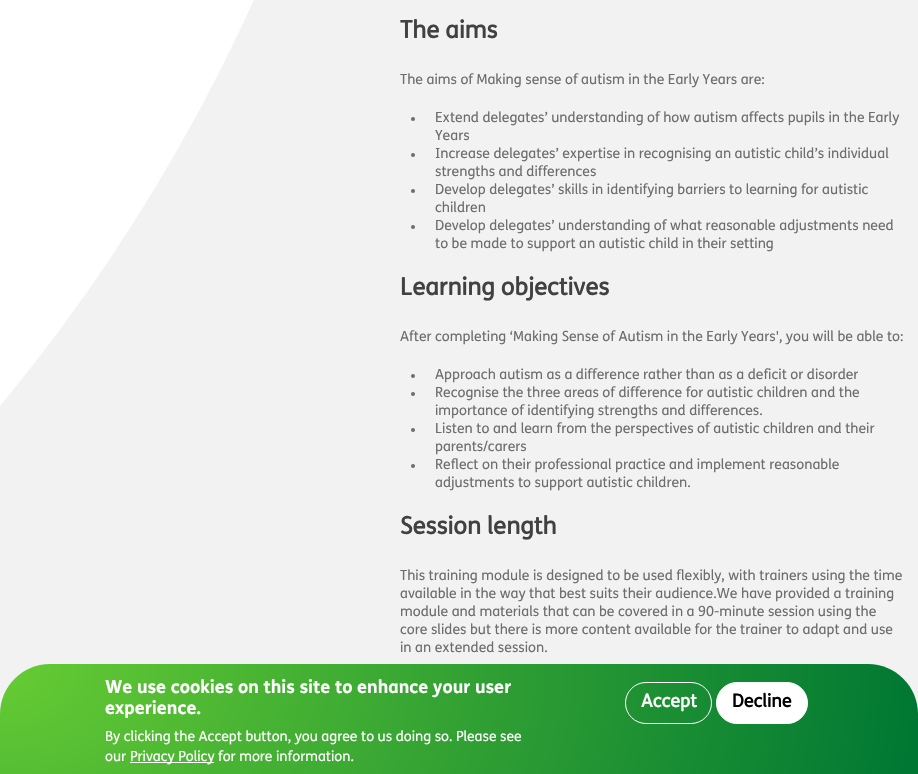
void draw(SkCanvas* canvas) {
    SkPaint paint;
    paint.setAntiAlias(true);
    auto face = [&](const char* family, int weight, float size, bool italic = false) {
        SkFontStyle style(weight, SkFontStyle::kNormal_Width,
            italic ? SkFontStyle::kItalic_Slant : SkFontStyle::kUpright_Slant);
        SkFont result(fontMgr->matchFamilyStyle(family, style), size);
        result.setSubpixel(true);
        return result;
    };
    auto write = [&](const char* s, float x, float y, const SkFont& font, SkColor color) {
        SkPaint ink(SkColor4f::FromColor(color));
        ink.setAntiAlias(true);
        canvas->drawString(s, x, y, font, ink);
    };
    auto block = [&](float x, float y, float w, float h, SkColor color) {
        SkPaint ink(SkColor4f::FromColor(color));
        ink.setAntiAlias(true);
        canvas->drawRect(SkRect::MakeXYWH(x, y, w, h), ink);
    };
    canvas->clear(SkColorSetRGB(242, 242, 242));
    paint.setColor(SK_ColorWHITE);
    canvas->drawOval(SkRect::MakeXYWH(-3187, -2533, 3600, 3590), paint);
    auto kFont1 = face("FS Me", 700, 24);
    write("The aims", 400, 38, kFont1, SkColorSetRGB(65, 65, 65));
    auto kFont2 = face("FS Me", 400, 14);
    write("The aims of Making sense of autism in the Early Years are:", 400, 84, kFont2, SkColorSetRGB(109, 109, 109));
    paint.setColor(SkColorSetRGB(109, 109, 109));
    canvas->drawCircle(413, 119, 2, paint);
    write("Extend delegates’ understanding of how autism affects pupils in the Early", 435, 122, kFont2, SkColorSetRGB(109, 109, 109));
    write("Years", 435, 140, kFont2, SkColorSetRGB(109, 109, 109));
    canvas->drawCircle(413, 155, 2, paint);
    write("Increase delegates’ expertise in recognising an autistic child’s individual", 435, 158, kFont2, SkColorSetRGB(109, 109, 109));
    write("strengths and differences", 435, 176, kFont2, SkColorSetRGB(109, 109, 109));
    canvas->drawCircle(413, 191, 2, paint);
    write("Develop delegates’ skills in identifying barriers to learning for autistic", 435, 194, kFont2, SkColorSetRGB(109, 109, 109));
    write("children", 435, 212, kFont2, SkColorSetRGB(109, 109, 109));
    canvas->drawCircle(413, 227, 2, paint);
    write("Develop delegates’ understanding of what reasonable adjustments need", 435, 230, kFont2, SkColorSetRGB(109, 109, 109));
    write("to be made to support an autistic child in their setting", 435, 248, kFont2, SkColorSetRGB(109, 109, 109));
    write("Learning objectives", 400, 295, kFont1, SkColorSetRGB(65, 65, 65));
    write("After completing ‘Making Sense of Autism in the Early Years', you will be able to:", 400, 341, kFont2, SkColorSetRGB(109, 109, 109));
    canvas->drawCircle(413, 376, 2, paint);
    write("Approach autism as a difference rather than as a deficit or disorder", 435, 379, kFont2, SkColorSetRGB(109, 109, 109));
    canvas->drawCircle(413, 394, 2, paint);
    write("Recognise the three areas of difference for autistic children and the", 435, 397, kFont2, SkColorSetRGB(109, 109, 109));
    write("importance of identifying strengths and differences.", 435, 415, kFont2, SkColorSetRGB(109, 109, 109));
    canvas->drawCircle(413, 430, 2, paint);
    write("Listen to and learn from the perspectives of autistic children and their", 435, 433, kFont2, SkColorSetRGB(109, 109, 109));
    write("parents/carers", 435, 451, kFont2, SkColorSetRGB(109, 109, 109));
    canvas->drawCircle(413, 466, 2, paint);
    write("Reflect on their professional practice and implement reasonable", 435, 469, kFont2, SkColorSetRGB(109, 109, 109));
    write("adjustments to support autistic children.", 435, 487, kFont2, SkColorSetRGB(109, 109, 109));
    write("Session length", 400, 534, kFont1, SkColorSetRGB(65, 65, 65));
    write("This training module is designed to be used flexibly, with trainers using the time", 400, 580, kFont2, SkColorSetRGB(109, 109, 109));
    write("available in the way that best suits their audience.We have provided a training", 400, 598, kFont2, SkColorSetRGB(109, 109, 109));
    write("module and materials that can be covered in a 90-minute session using the", 400, 616, kFont2, SkColorSetRGB(109, 109, 109));
    write("core slides but there is more content available for the trainer to adapt and use", 400, 634, kFont2, SkColorSetRGB(109, 109, 109));
    write("in an extended session.", 400, 652, kFont2, SkColorSetRGB(109, 109, 109));
    {
        const SkColor colors[] = {SkColorSetRGB(102, 204, 51), SkColorSetRGB(0, 120, 51)};
        const float stops[] = {0, 1};
        SkMatrix m = SkMatrix::Translate(0, 673).preScale(918, 599);
        paint.setShader(SkGradientShader::MakeRadial({0, 0}, 1, colors, stops, 2, SkTileMode::kClamp, 0, &m));
        paint.setAlpha(255);
    }
    canvas->drawPath(SkPathBuilder().moveTo(50, 664).lineTo(868, 664).cubicTo(895.5f, 664, 918, 686.5f, 918, 714).lineTo(918, 774).lineTo(0, 774).lineTo(0, 714).cubicTo(0, 686.5f, 22.5f, 664, 50, 664).close().detach(), paint);
    auto kFont3 = face("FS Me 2", 700, 18);
    write("We use cookies on this site to enhance your user", 105, 693, kFont3, SK_ColorWHITE);
    write("experience.", 105, 714, kFont3, SK_ColorWHITE);
    write("By clicking the Accept button, you agree to us doing so. Please see", 105, 741, kFont2, SK_ColorWHITE);
    write("our", 105, 761, kFont2, SK_ColorWHITE);
    block(130, 762, 84, 1, SK_ColorWHITE);
    write("Privacy Policy", 130, 761, kFont2, SK_ColorWHITE);
    write("for more information.", 218, 761, kFont2, SK_ColorWHITE);
    paint.setStyle(SkPaint::kStroke_Style);
    paint.setStrokeWidth(1);
    paint.setShader(nullptr);
    paint.setColor(SK_ColorWHITE);
    canvas->drawRoundRect(SkRect::MakeXYWH(625.5f, 682.5f, 86, 41), 20.5f, 20.5f, paint);
    auto kFont4 = face("FS Me", 700, 18);
    write("Accept", 641, 707, kFont4, SK_ColorWHITE);
    paint.setStyle(SkPaint::kFill_Style);
    canvas->drawRoundRect(SkRect::MakeXYWH(716.5f, 682.5f, 91, 41), 20.5f, 20.5f, paint);
    paint.setStyle(SkPaint::kStroke_Style);
    canvas->drawRoundRect(SkRect::MakeXYWH(716.5f, 682.5f, 91, 41), 20.5f, 20.5f, paint);
    write("Decline", 732, 707, kFont4, SK_ColorBLACK);
}
